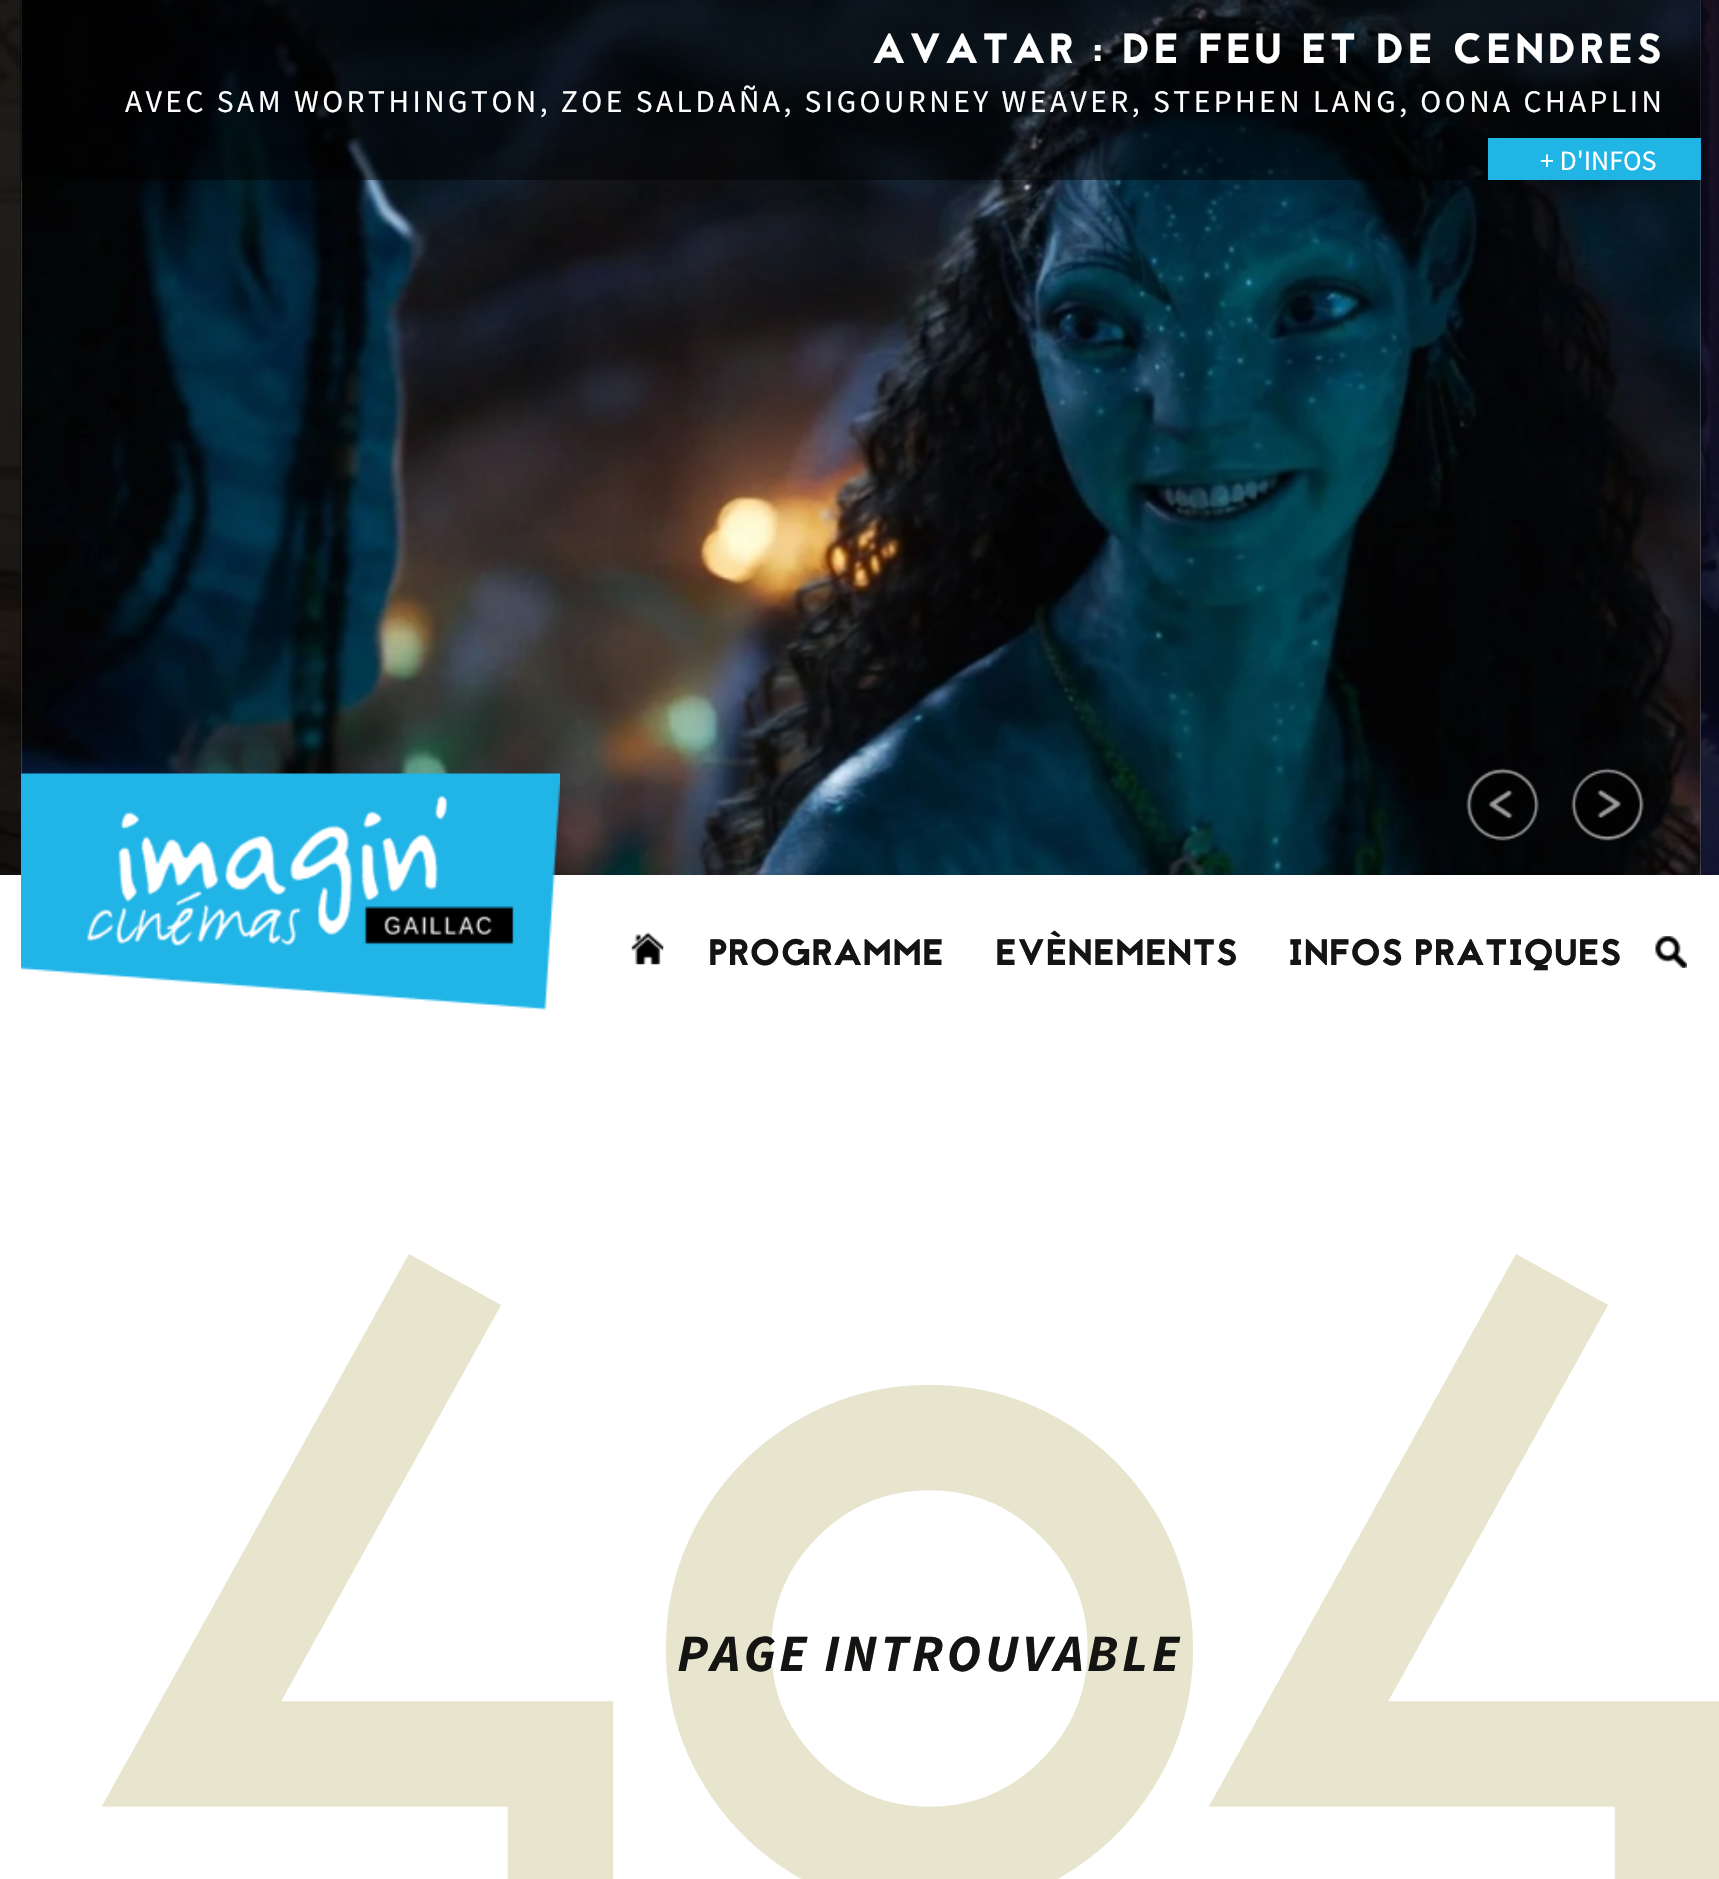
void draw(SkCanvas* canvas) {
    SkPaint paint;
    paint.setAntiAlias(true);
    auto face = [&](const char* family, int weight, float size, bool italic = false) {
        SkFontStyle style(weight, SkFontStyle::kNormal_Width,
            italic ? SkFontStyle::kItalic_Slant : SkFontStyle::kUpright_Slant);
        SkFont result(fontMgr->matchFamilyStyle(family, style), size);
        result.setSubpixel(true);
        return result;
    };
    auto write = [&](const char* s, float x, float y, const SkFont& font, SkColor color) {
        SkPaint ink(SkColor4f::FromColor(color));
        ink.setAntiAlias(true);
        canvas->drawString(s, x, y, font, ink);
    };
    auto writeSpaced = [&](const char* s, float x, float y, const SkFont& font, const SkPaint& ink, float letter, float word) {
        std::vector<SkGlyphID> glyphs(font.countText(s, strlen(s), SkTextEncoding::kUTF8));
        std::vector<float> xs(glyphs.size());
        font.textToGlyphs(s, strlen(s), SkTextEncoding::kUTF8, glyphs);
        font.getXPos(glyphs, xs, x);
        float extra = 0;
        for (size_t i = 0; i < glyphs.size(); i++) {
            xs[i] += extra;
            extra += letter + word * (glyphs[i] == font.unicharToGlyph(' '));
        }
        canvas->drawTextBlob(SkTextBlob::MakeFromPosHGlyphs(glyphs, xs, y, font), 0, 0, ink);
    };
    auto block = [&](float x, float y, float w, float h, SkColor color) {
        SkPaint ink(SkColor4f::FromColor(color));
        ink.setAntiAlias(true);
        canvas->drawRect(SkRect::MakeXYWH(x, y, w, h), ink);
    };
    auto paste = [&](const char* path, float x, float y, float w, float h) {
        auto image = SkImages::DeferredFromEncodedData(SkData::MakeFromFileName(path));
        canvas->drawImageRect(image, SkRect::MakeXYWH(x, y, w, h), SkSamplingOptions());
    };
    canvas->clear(SK_ColorWHITE);
    block(0, 0, 21, 875, SK_ColorBLACK);
    paste("pic1.png", 0, 0, 21, 875);
    paste("pic2.png", 20, 0, 1681, 875);
    block(21, 0, 1680, 180, SkColorSetARGB(128, 0, 0, 0));
    auto kFont1 = face("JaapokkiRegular", 400, 42);
    paint.setColor(SK_ColorWHITE);
    writeSpaced("AVATAR : DE FEU ET DE CENDRES", 872, 63, kFont1, paint, 3.5f, 0);
    auto kFont2 = face("Source Sans Pro", 400, 31.5f);
    writeSpaced("AVEC SAM WORTHINGTON, ZOE SALDAÑA, SIGOURNEY WEAVER, STEPHEN LANG, OONA CHAPLIN", 125, 112, kFont2, paint, 3.5f, 0);
    block(1488, 138, 213, 42, SkColorSetRGB(33, 181, 230));
    auto kFont3 = face("Source Sans Pro", 400, 28);
    write("+ D'INFOS", 1540, 170, kFont3, SK_ColorWHITE);
    block(1701, 0, 18, 875, SK_ColorBLACK);
    paste("pic3.png", 1700, 0, 19, 875);
    paste("pic4.png", 1466, 768, 73, 73);
    paste("pic5.png", 1571, 768, 73, 73);
    paste("pic6.png", 21, 773, 539, 237);
    paste("pic7.png", 631, 932, 33, 33);
    auto kFont4 = face("JaapokkiRegular", 400, 36.75f);
    write("PROGRAMME", 708, 965, kFont4, SkColorSetRGB(20, 20, 18));
    write("EVÈNEMENTS", 995, 965, kFont4, SkColorSetRGB(20, 20, 18));
    write("INFOS PRATIQUES", 1288, 965, kFont4, SkColorSetRGB(20, 20, 18));
    paste("pic8.png", 1655, 936, 32, 32);
    paste("pic9.png", 101, 1254, 1618, 625);
    auto kFont5 = face("Source Sans Pro", 700, 52.5f, true);
    paint.setColor(SkColorSetRGB(20, 20, 18));
    writeSpaced("PAGE INTROUVABLE", 677, 1671, kFont5, paint, 3.5f, 0);
}
